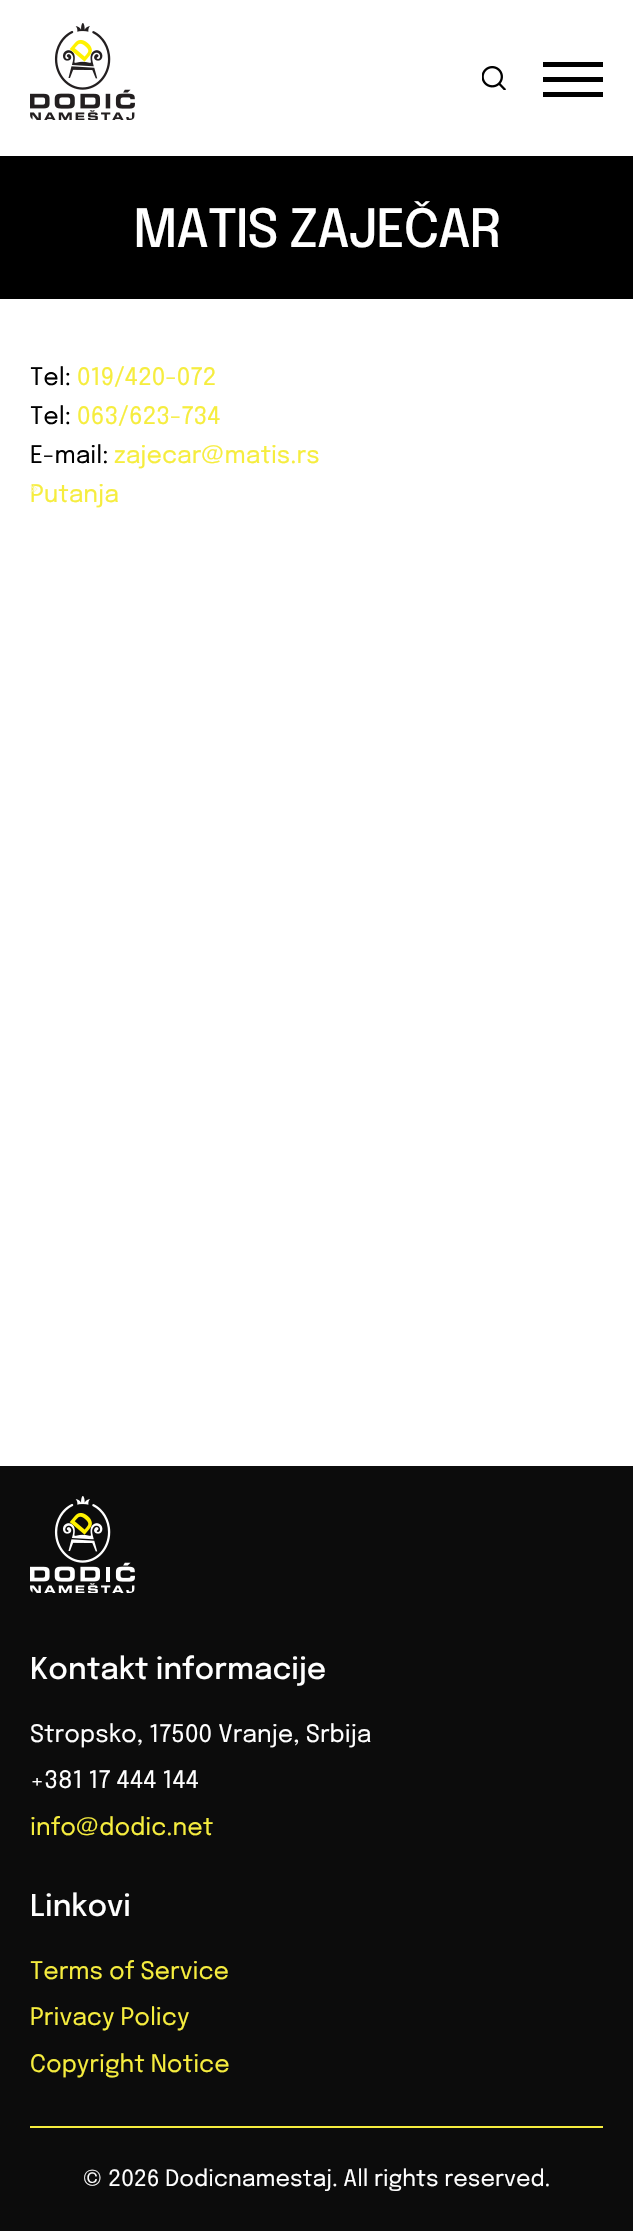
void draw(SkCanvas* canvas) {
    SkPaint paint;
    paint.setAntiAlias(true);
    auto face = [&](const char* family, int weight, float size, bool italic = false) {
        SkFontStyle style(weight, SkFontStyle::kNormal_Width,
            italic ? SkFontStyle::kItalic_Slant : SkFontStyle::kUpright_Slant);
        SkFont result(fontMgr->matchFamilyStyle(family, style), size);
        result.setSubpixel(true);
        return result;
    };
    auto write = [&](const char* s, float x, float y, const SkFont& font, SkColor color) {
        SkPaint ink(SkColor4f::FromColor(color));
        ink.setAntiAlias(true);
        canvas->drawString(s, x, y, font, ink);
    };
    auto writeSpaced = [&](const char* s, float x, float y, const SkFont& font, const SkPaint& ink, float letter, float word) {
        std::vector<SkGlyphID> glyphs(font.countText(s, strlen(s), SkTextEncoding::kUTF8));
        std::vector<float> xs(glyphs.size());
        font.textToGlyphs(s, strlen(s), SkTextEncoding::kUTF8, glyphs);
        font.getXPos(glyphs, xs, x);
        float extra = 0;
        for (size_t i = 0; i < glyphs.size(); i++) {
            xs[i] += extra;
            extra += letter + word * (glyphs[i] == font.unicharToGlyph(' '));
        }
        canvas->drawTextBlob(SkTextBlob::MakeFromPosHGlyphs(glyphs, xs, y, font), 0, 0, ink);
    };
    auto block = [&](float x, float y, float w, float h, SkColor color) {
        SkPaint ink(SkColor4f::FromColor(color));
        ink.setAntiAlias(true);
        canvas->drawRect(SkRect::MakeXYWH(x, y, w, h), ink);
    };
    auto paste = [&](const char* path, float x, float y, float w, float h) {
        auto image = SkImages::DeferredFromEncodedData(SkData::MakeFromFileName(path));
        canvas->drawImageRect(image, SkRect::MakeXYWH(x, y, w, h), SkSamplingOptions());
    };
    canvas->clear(SK_ColorWHITE);
    block(0, 156, 633, 143, SK_ColorBLACK);
    auto kFont1 = face("Epilogue", 500, 52.5f);
    paint.setColor(SK_ColorWHITE);
    writeSpaced("MATIS ZAJEČAR", 133, 247, kFont1, paint, -1.5f, 0);
    auto kFont2 = face("Epilogue", 400, 24);
    write("Tel:", 30, 385, kFont2, SK_ColorBLACK);
    write("019/420-072", 77, 385, kFont2, SkColorSetRGB(246, 237, 62));
    write("Tel:", 30, 424, kFont2, SK_ColorBLACK);
    write("063/623-734", 77, 424, kFont2, SkColorSetRGB(246, 237, 62));
    write("E-mail:", 30, 463, kFont2, SK_ColorBLACK);
    write("zajecar@matis.rs", 114, 463, kFont2, SkColorSetRGB(246, 237, 62));
    write("Putanja", 30, 502, kFont2, SkColorSetRGB(246, 237, 62));
    paste("pic1.png", 30, 23, 105, 97);
    paste("pic2.png", 482, 66, 24, 24);
    block(543, 62, 60, 5, SK_ColorBLACK);
    block(543, 77, 60, 5, SK_ColorBLACK);
    block(543, 92, 60, 5, SK_ColorBLACK);
    auto kFont3 = face("Epilogue", 400, 21);
    write("»", 30, 495, kFont3, SkColorSetRGB(252, 249, 191));
    block(0, 1466, 633, 765, SkColorSetRGB(12, 12, 12));
    paste("pic3.png", 30, 1496, 105, 97);
    auto kFont4 = face("Epilogue", 500, 30);
    write("Kontakt informacije", 30, 1679, kFont4, SK_ColorWHITE);
    write("Stropsko, 17500 Vranje, Srbija", 30, 1742, kFont2, SK_ColorWHITE);
    write("+381 17 444 144", 30, 1788, kFont2, SK_ColorWHITE);
    write("info@dodic.net", 30, 1835, kFont2, SkColorSetRGB(246, 237, 62));
    write("Linkovi", 30, 1916, kFont4, SK_ColorWHITE);
    write("Terms of Service", 30, 1979, kFont2, SkColorSetRGB(246, 237, 62));
    write("Privacy Policy", 30, 2025, kFont2, SkColorSetRGB(246, 237, 62));
    write("Copyright Notice", 30, 2072, kFont2, SkColorSetRGB(246, 237, 62));
    block(30, 2126, 573, 2, SkColorSetRGB(246, 237, 62));
    auto kFont5 = face("Epilogue", 400, 22.5f);
    write("© 2026 Dodicnamestaj. All rights reserved.", 83, 2186, kFont5, SK_ColorWHITE);
}
